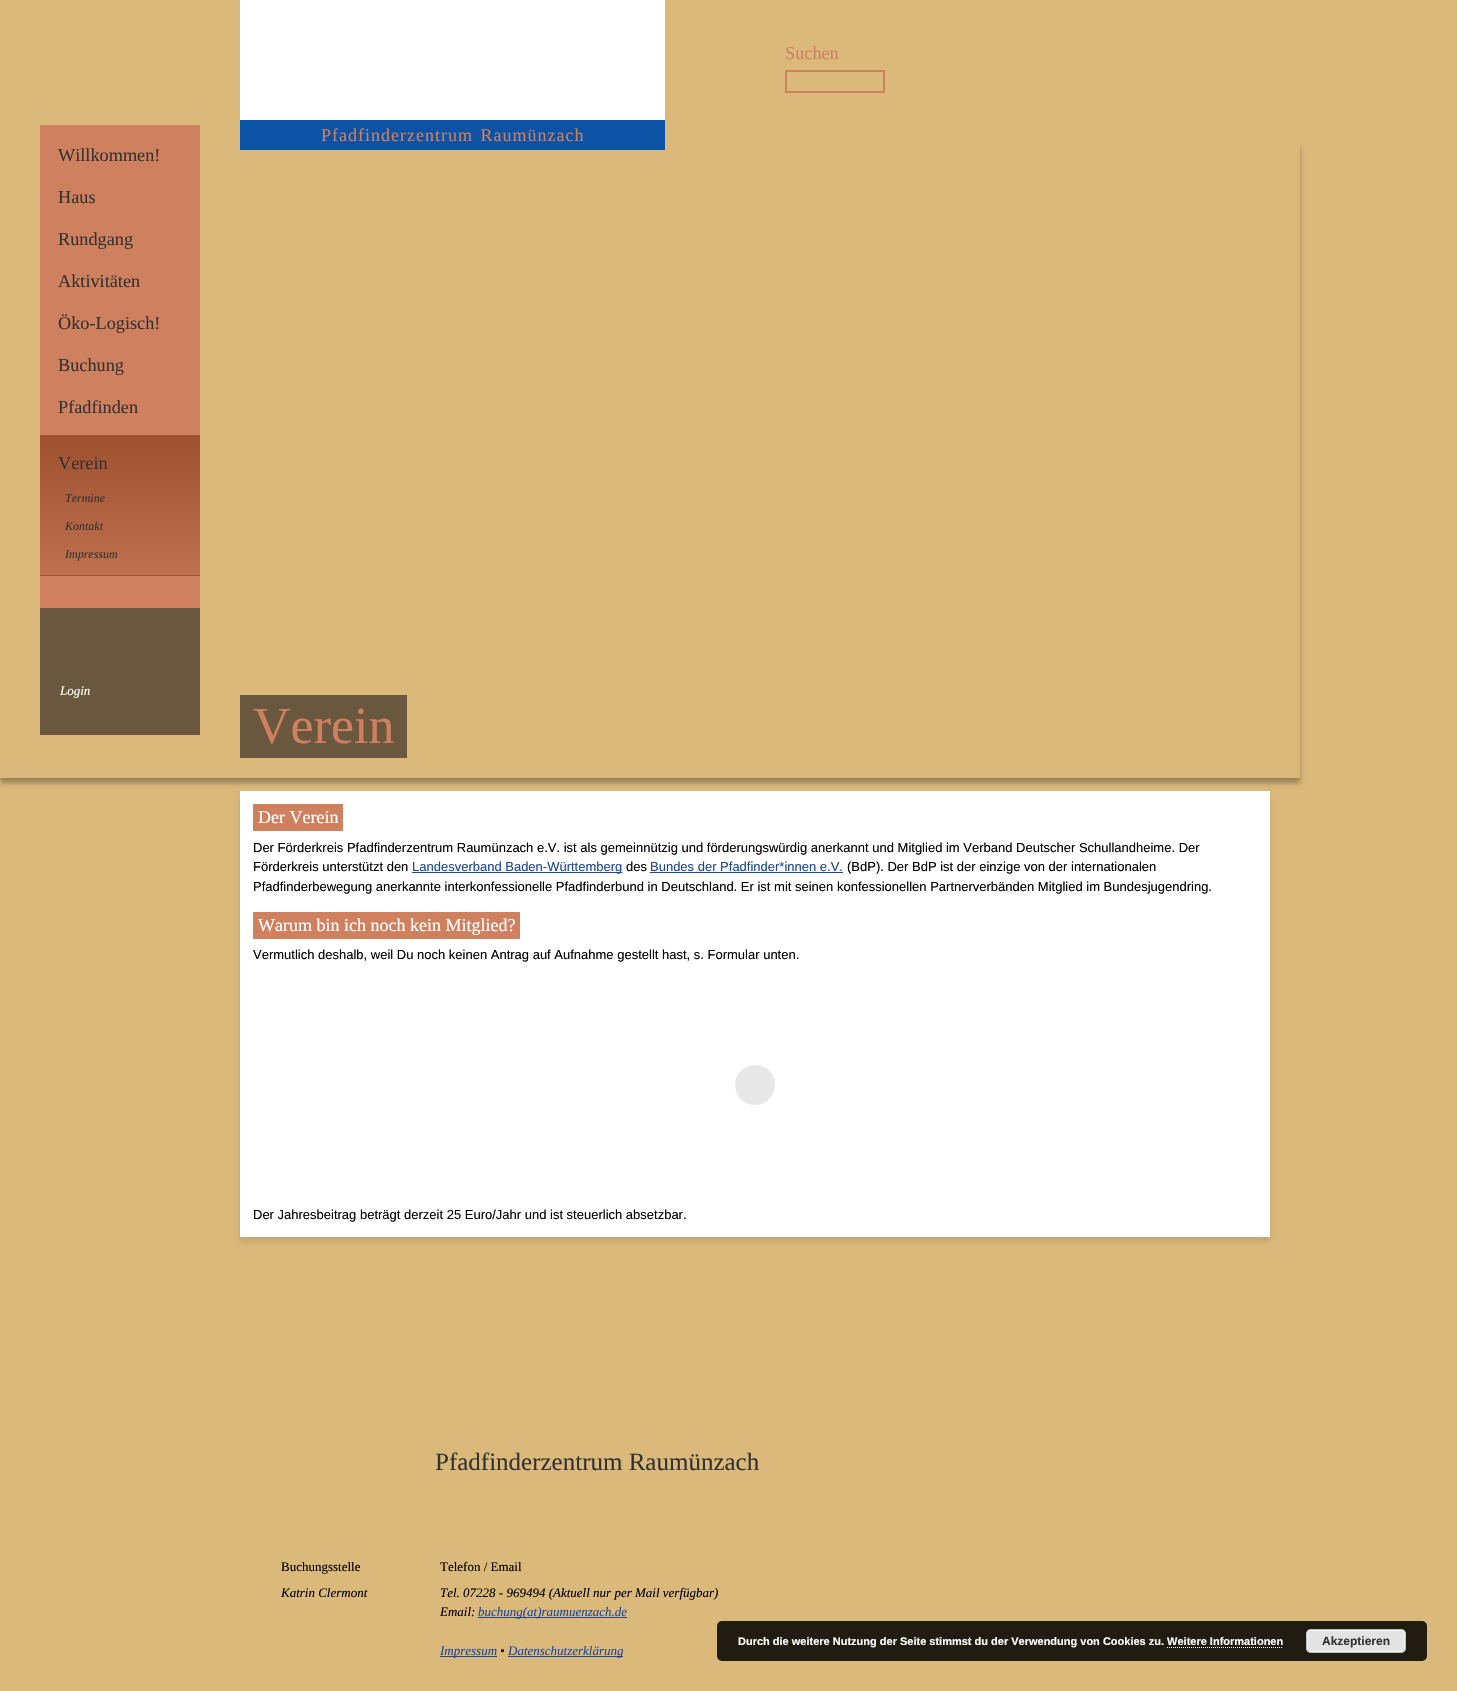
void draw(SkCanvas* canvas) {
    SkPaint paint;
    paint.setAntiAlias(true);
    auto face = [&](const char* family, int weight, float size, bool italic = false) {
        SkFontStyle style(weight, SkFontStyle::kNormal_Width,
            italic ? SkFontStyle::kItalic_Slant : SkFontStyle::kUpright_Slant);
        SkFont result(fontMgr->matchFamilyStyle(family, style), size);
        result.setSubpixel(true);
        return result;
    };
    auto write = [&](const char* s, float x, float y, const SkFont& font, SkColor color) {
        SkPaint ink(SkColor4f::FromColor(color));
        ink.setAntiAlias(true);
        canvas->drawString(s, x, y, font, ink);
    };
    auto writeSpaced = [&](const char* s, float x, float y, const SkFont& font, const SkPaint& ink, float letter, float word) {
        std::vector<SkGlyphID> glyphs(font.countText(s, strlen(s), SkTextEncoding::kUTF8));
        std::vector<float> xs(glyphs.size());
        font.textToGlyphs(s, strlen(s), SkTextEncoding::kUTF8, glyphs);
        font.getXPos(glyphs, xs, x);
        float extra = 0;
        for (size_t i = 0; i < glyphs.size(); i++) {
            xs[i] += extra;
            extra += letter + word * (glyphs[i] == font.unicharToGlyph(' '));
        }
        canvas->drawTextBlob(SkTextBlob::MakeFromPosHGlyphs(glyphs, xs, y, font), 0, 0, ink);
    };
    auto block = [&](float x, float y, float w, float h, SkColor color) {
        SkPaint ink(SkColor4f::FromColor(color));
        ink.setAntiAlias(true);
        canvas->drawRect(SkRect::MakeXYWH(x, y, w, h), ink);
    };
    auto card = [&](float x, float y, float w, float h, float radius, SkColor color) {
        SkPaint ink(SkColor4f::FromColor(color));
        ink.setAntiAlias(true);
        canvas->drawRoundRect(SkRect::MakeXYWH(x, y, w, h), radius, radius, ink);
    };
    canvas->clear(SkColorSetRGB(219, 185, 123));
    auto kFont1 = face("Liberation Serif", 400, 18.25f);
    write("Suchen", 785, 59, kFont1, SkColorSetRGB(207, 128, 95));
    paint.setStyle(SkPaint::kStroke_Style);
    paint.setStrokeWidth(2);
    paint.setColor(SkColorSetRGB(207, 128, 95));
    canvas->drawRect(SkRect::MakeXYWH(786, 71, 98, 21), paint);
    block(240, 0, 425, 120, SK_ColorWHITE);
    paint.setStyle(SkPaint::kFill_Style);
    paint.setColor(SkColorSetARGB(26, 0, 0, 0));
    paint.setMaskFilter(SkMaskFilter::MakeBlur(kNormal_SkBlurStyle, 2.5f));
    canvas->drawRect(SkRect::MakeXYWH(240, 796, 1030, 446), paint);
    paint.setMaskFilter(nullptr);
    block(240, 791, 1030, 446, SK_ColorWHITE);
    canvas->save();
    canvas->clipPath(SkPathBuilder(SkPathFillType::kEvenOdd).moveTo(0, 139).lineTo(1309, 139).lineTo(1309, 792).lineTo(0, 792).close().moveTo(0, 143).lineTo(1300, 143).lineTo(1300, 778).lineTo(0, 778).close().detach(), true);
    paint.setColor(SkColorSetARGB(77, 0, 0, 0));
    paint.setMaskFilter(SkMaskFilter::MakeBlur(kNormal_SkBlurStyle, 2.5f));
    canvas->drawRect(SkRect::MakeXYWH(0, 148, 1300, 635), paint);
    paint.setMaskFilter(nullptr);
    canvas->restore();
    block(240, 120, 425, 30, SkColorSetRGB(13, 83, 165));
    auto kFont2 = face("Liberation Serif", 400, 18);
    paint.setColor(SkColorSetRGB(207, 128, 95));
    writeSpaced("Pfadfinderzentrum Raumünzach", 321, 141, kFont2, paint, 1, 2);
    block(40, 125, 160, 483, SkColorSetRGB(207, 128, 95));
    write("Willkommen!", 58, 161, kFont1, SkColorSetRGB(51, 51, 51));
    write("Haus", 58, 203, kFont1, SkColorSetRGB(51, 51, 51));
    write("Rundgang", 58, 245, kFont1, SkColorSetRGB(51, 51, 51));
    write("Aktivitäten", 58, 287, kFont1, SkColorSetRGB(51, 51, 51));
    write("Öko-Logisch!", 58, 329, kFont1, SkColorSetRGB(51, 51, 51));
    write("Buchung", 58, 371, kFont1, SkColorSetRGB(51, 51, 51));
    write("Pfadfinden", 58, 413, kFont1, SkColorSetRGB(51, 51, 51));
    {
        const SkColor colors[] = {SkColorSetRGB(159, 80, 47), SkColorSetRGB(191, 112, 79)};
        const float stops[] = {0, 1};
        const SkPoint ends[] = {{120, 436}, {120, 575}};
        paint.setShader(SkGradientShader::MakeLinear(ends, colors, stops, 2, SkTileMode::kClamp));
        paint.setAlpha(255);
    }
    canvas->drawRect(SkRect::MakeXYWH(40, 436, 160, 139), paint);
    block(40, 435, 160, 1, SkColorSetRGB(159, 80, 47));
    block(40, 575, 160, 1, SkColorSetRGB(159, 80, 47));
    write("Verein", 58, 469, kFont1, SkColorSetRGB(51, 51, 51));
    auto kFont3 = face("Liberation Serif", 400, 12, true);
    write("Termine", 65, 502, kFont3, SkColorSetRGB(51, 51, 51));
    write("Kontakt", 65, 530, kFont3, SkColorSetRGB(51, 51, 51));
    write("Impressum", 65, 558, kFont3, SkColorSetRGB(51, 51, 51));
    block(40, 608, 160, 127, SkColorSetRGB(105, 88, 61));
    auto kFont4 = face("Liberation Serif", 400, 13, true);
    write("Login", 60, 695, kFont4, SK_ColorWHITE);
    block(240, 695, 167, 63, SkColorSetRGB(105, 88, 61));
    auto kFont5 = face("Liberation Serif", 400, 52);
    write("Verein", 253, 743, kFont5, SkColorSetRGB(207, 128, 95));
    block(253, 804, 90, 27, SkColorSetRGB(207, 128, 95));
    write("Der Verein", 258, 823, kFont2, SK_ColorWHITE);
    auto kFont6 = face("Liberation Sans", 400, 13);
    write("Der Förderkreis Pfadfinderzentrum Raumünzach e.V. ist als gemeinnützig und förderungswürdig anerkannt und Mitglied im Verband Deutscher Schullandheime. Der", 253, 852, kFont6, SK_ColorBLACK);
    write("Förderkreis unterstützt den", 253, 871, kFont6, SK_ColorBLACK);
    block(412, 872, 210, 1, SkColorSetRGB(29, 72, 153));
    write("Landesverband Baden-Württemberg", 412, 871, kFont6, SkColorSetRGB(29, 72, 153));
    write("des", 626, 871, kFont6, SK_ColorBLACK);
    write("Bundes der Pfadfinder*innen e.V.", 650, 871, kFont6, SkColorSetRGB(29, 72, 153));
    block(650, 872, 193, 1, SkColorSetRGB(29, 72, 153));
    write("(BdP). Der BdP ist der einzige von der internationalen", 847, 871, kFont6, SK_ColorBLACK);
    write("Pfadfinderbewegung anerkannte interkonfessionelle Pfadfinderbund in Deutschland. Er ist mit seinen konfessionellen Partnerverbänden Mitglied im Bundesjugendring.", 253, 891, kFont6, SK_ColorBLACK);
    block(253, 912, 267, 27, SkColorSetRGB(207, 128, 95));
    write("Warum bin ich noch kein Mitglied?", 258, 931, kFont2, SK_ColorWHITE);
    write("Vermutlich deshalb, weil Du noch keinen Antrag auf Aufnahme gestellt hast, s. Formular unten.", 253, 959, kFont6, SK_ColorBLACK);
    paint.setShader(nullptr);
    paint.setColor(SkColorSetRGB(232, 232, 232));
    canvas->drawCircle(755, 1085, 20, paint);
    write("Der Jahresbeitrag beträgt derzeit 25 Euro/Jahr und ist steuerlich absetzbar.", 253, 1219, kFont6, SK_ColorBLACK);
    auto kFont7 = face("Liberation Serif", 400, 25);
    write("Pfadfinderzentrum Raumünzach", 435, 1470, kFont7, SkColorSetRGB(51, 51, 51));
    auto kFont8 = face("Liberation Serif", 400, 13);
    write("Buchungsstelle", 281, 1571, kFont8, SK_ColorBLACK);
    write("Katrin Clermont", 281, 1597, kFont4, SK_ColorBLACK);
    write("Telefon / Email", 440, 1571, kFont8, SK_ColorBLACK);
    write("Tel. 07228 - 969494 (Aktuell nur per Mail verfügbar)", 440, 1597, kFont4, SK_ColorBLACK);
    write("Email:", 440, 1616, kFont4, SK_ColorBLACK);
    block(478, 1617, 149, 1, SkColorSetRGB(29, 72, 153));
    write("buchung(at)raumuenzach.de", 478, 1616, kFont4, SkColorSetRGB(29, 72, 153));
    block(440, 1656, 57, 1, SkColorSetRGB(29, 72, 153));
    write("Impressum", 440, 1655, kFont4, SkColorSetRGB(29, 72, 153));
    write("•", 500, 1655, kFont4, SK_ColorBLACK);
    block(508, 1656, 115, 1, SkColorSetRGB(29, 72, 153));
    write("Datenschutzerklärung", 508, 1655, kFont4, SkColorSetRGB(29, 72, 153));
    card(717, 1621, 710, 40, 5, SkColorSetRGB(33, 28, 18));
    auto kFont9 = face("Liberation Sans", 700, 11);
    write("Durch die weitere Nutzung der Seite stimmst du der Verwendung von Cookies zu. Weitere Informationen", 738, 1645, kFont9, SK_ColorWHITE);
    card(1306, 1629, 100, 24, 5, SkColorSetRGB(227, 227, 227));
    paint.setStyle(SkPaint::kStroke_Style);
    paint.setStrokeWidth(1);
    paint.setColor(SkColorSetRGB(246, 246, 246));
    canvas->drawRoundRect(SkRect::MakeXYWH(1307.5f, 1630.5f, 97, 21), 3.5f, 3.5f, paint);
    paint.setColor(SkColorSetRGB(187, 187, 187));
    canvas->drawRoundRect(SkRect::MakeXYWH(1306.5f, 1629.5f, 99, 23), 4.5f, 4.5f, paint);
    auto kFont10 = face("Liberation Sans", 700, 12);
    write("Akzeptieren", 1322, 1645, kFont10, SkColorSetRGB(51, 51, 51));
    paint.setColor(SK_ColorWHITE);
    paint.setPathEffect(SkDashPathEffect::Make({{1, 1}}, 0));
    canvas->drawPath(SkPathBuilder().moveTo(1167, 1647.5f).lineTo(1283, 1647.5f).detach(), paint);
    paint.setPathEffect(nullptr);
}
